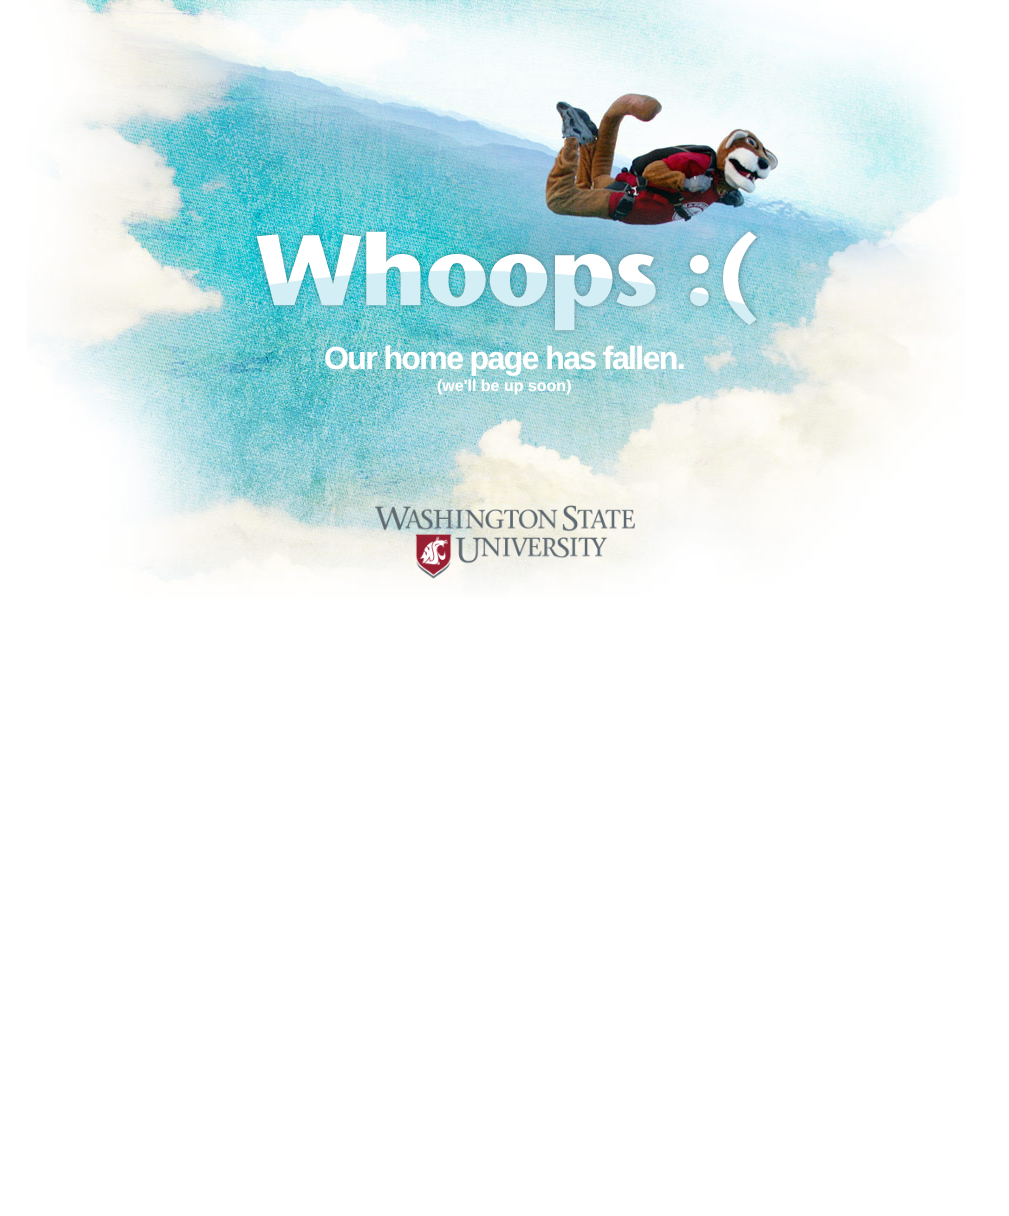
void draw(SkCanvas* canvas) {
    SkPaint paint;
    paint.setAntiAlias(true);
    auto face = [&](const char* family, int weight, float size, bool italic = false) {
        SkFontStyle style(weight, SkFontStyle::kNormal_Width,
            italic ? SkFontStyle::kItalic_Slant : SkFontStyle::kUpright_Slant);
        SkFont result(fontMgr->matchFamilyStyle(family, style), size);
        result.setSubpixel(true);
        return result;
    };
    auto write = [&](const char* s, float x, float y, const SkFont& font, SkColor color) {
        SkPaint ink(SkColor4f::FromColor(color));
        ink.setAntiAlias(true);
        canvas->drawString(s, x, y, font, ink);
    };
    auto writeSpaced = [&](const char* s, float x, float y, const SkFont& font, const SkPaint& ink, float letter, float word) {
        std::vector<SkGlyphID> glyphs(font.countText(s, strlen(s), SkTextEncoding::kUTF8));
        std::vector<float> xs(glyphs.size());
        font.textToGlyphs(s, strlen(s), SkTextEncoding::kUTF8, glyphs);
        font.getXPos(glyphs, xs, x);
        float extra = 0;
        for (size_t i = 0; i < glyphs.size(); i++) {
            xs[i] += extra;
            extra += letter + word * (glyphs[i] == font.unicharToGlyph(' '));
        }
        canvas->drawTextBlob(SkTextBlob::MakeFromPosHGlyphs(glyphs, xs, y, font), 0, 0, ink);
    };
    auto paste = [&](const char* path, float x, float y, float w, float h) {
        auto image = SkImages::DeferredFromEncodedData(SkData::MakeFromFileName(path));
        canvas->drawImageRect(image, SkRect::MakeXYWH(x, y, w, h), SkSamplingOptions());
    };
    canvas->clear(SK_ColorWHITE);
    paste("pic1.png", 26, 0, 939, 597);
    paste("pic2.png", 253, 228, 507, 106);
    auto kFont1 = face("Liberation Sans", 700, 32);
    paint.setColor(SK_ColorWHITE);
    writeSpaced("Our home page has fallen.", 324, 369, kFont1, paint, -1.6f, 0);
    auto kFont2 = face("Liberation Sans", 700, 16);
    write("(we'll be up soon)", 437, 391, kFont2, SK_ColorWHITE);
    paste("pic3.png", 375, 505, 260, 74);
}
